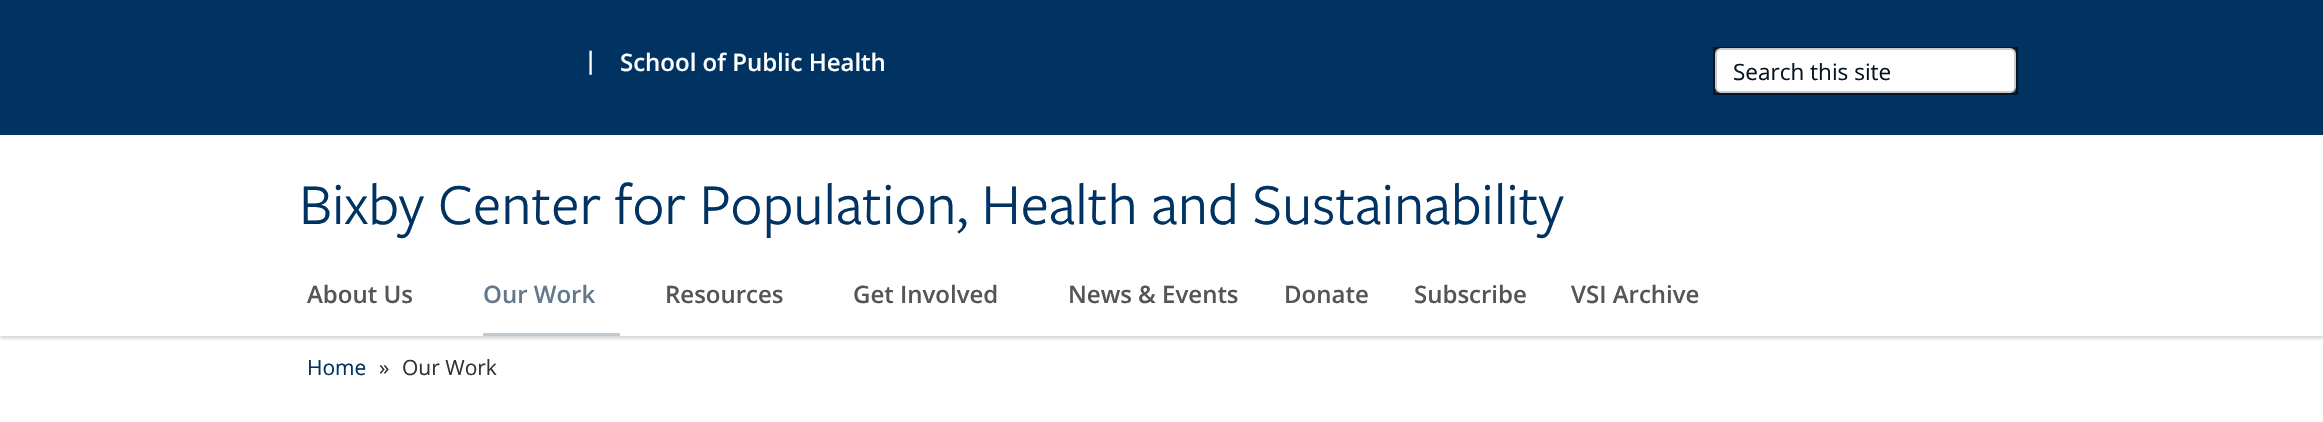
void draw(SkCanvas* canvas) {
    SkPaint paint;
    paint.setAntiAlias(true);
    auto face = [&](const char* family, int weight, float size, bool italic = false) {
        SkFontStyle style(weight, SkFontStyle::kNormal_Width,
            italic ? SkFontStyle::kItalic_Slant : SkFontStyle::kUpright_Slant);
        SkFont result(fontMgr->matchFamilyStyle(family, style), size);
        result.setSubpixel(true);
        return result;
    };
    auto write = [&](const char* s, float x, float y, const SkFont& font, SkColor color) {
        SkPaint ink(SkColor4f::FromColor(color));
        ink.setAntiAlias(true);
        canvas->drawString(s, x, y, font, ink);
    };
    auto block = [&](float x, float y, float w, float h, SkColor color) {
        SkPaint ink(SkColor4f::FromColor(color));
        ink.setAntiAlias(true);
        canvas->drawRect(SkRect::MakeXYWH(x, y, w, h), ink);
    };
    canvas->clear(SK_ColorWHITE);
    canvas->save();
    canvas->clipRect(SkRect::MakeXYWH(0, 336, 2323, 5));
    paint.setColor(SkColorSetARGB(51, 0, 0, 0));
    paint.setMaskFilter(SkMaskFilter::MakeBlur(kNormal_SkBlurStyle, 2));
    canvas->drawRect(SkRect::MakeXYWH(0, 2, 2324, 336), paint);
    paint.setMaskFilter(nullptr);
    canvas->restore();
    block(0, 0, 2323, 135, SkColorSetRGB(0, 50, 98));
    auto kFont1 = face("Open Sans", 600, 24);
    write("|", 584, 69, kFont1, SK_ColorWHITE);
    write("School of Public Health", 620, 71, kFont1, SK_ColorWHITE);
    paint.setStyle(SkPaint::kStroke_Style);
    paint.setStrokeWidth(2);
    paint.setColor(SkColorSetRGB(8, 21, 33));
    canvas->drawRect(SkRect::MakeXYWH(1714, 48, 303, 46), paint);
    paint.setStyle(SkPaint::kFill_Style);
    paint.setColor(SK_ColorWHITE);
    canvas->drawRoundRect(SkRect::MakeXYWH(1716, 49, 299, 43), 5, 5, paint);
    paint.setStyle(SkPaint::kStroke_Style);
    paint.setColor(SkColorSetRGB(204, 204, 204));
    canvas->drawRoundRect(SkRect::MakeXYWH(1716, 49, 299, 43), 5, 5, paint);
    auto kFont2 = face("Open Sans", 400, 22.5f);
    write("Search this site", 1733, 80, kFont2, SkColorSetRGB(8, 21, 33));
    write("About Us", 307, 303, kFont1, SkColorSetRGB(85, 85, 85));
    block(483, 333, 137, 3, SkColorSetRGB(192, 202, 211));
    write("Our Work", 483, 303, kFont1, SkColorSetRGB(100, 120, 139));
    write("Resources", 665, 303, kFont1, SkColorSetRGB(85, 85, 85));
    write("Get Involved", 853, 303, kFont1, SkColorSetRGB(85, 85, 85));
    write("News & Events", 1068, 303, kFont1, SkColorSetRGB(85, 85, 85));
    write("Donate", 1284, 303, kFont1, SkColorSetRGB(85, 85, 85));
    write("Subscribe", 1414, 303, kFont1, SkColorSetRGB(85, 85, 85));
    write("VSI Archive", 1571, 303, kFont1, SkColorSetRGB(85, 85, 85));
    auto kFont3 = face("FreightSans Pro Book", 400, 60);
    write("Bixby Center for Population, Health and Sustainability", 299, 224, kFont3, SkColorSetRGB(0, 50, 98));
    auto kFont4 = face("Open Sans", 400, 21);
    write("Home", 307, 375, kFont4, SkColorSetRGB(0, 50, 98));
    write("»", 379, 375, kFont4, SkColorSetRGB(51, 51, 51));
    write("Our Work", 402, 375, kFont4, SkColorSetRGB(51, 51, 51));
}
